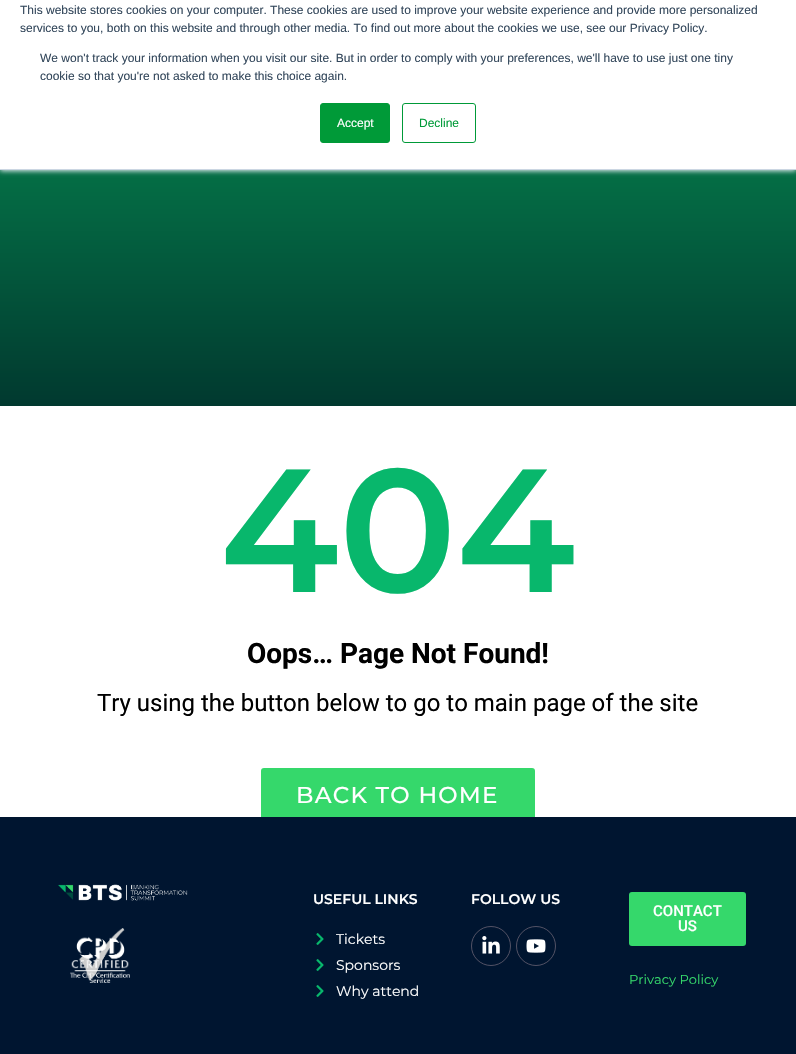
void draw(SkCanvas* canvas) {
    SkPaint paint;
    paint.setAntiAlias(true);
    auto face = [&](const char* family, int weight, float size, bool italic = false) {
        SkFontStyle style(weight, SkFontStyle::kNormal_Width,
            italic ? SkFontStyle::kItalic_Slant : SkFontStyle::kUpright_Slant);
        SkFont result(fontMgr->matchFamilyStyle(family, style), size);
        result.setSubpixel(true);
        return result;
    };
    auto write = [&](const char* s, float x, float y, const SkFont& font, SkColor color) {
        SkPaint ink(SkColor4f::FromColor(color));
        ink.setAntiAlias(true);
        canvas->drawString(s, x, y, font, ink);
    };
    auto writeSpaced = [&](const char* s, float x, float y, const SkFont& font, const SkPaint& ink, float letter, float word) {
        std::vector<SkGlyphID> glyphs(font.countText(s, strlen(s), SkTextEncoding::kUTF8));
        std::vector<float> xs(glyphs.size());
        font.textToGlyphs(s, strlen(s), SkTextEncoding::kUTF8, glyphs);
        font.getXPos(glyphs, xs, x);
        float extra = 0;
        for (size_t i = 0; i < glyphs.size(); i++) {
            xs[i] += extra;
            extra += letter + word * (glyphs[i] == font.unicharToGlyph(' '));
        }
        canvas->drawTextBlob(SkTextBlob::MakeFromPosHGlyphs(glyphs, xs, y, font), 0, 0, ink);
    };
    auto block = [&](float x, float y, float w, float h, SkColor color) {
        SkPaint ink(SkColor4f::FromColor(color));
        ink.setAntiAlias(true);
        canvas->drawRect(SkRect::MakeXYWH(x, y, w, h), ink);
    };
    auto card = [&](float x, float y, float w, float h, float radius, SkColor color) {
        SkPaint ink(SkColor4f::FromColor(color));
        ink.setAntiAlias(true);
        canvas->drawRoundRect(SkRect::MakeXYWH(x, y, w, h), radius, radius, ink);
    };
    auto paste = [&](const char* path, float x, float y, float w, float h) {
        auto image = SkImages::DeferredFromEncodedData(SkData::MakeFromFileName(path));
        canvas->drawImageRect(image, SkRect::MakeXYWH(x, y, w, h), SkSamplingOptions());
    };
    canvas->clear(SK_ColorWHITE);
    {
        const SkColor colors[] = {SkColorSetRGB(6, 136, 80), SkColorSetRGB(1, 57, 47)};
        const float stops[] = {0.18f, 1};
        const SkPoint ends[] = {{398, -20}, {398, 406}};
        paint.setShader(SkGradientShader::MakeLinear(ends, colors, stops, 2, SkTileMode::kClamp));
        paint.setAlpha(255);
    }
    canvas->drawRect(SkRect::MakeXYWH(0, 170, 796, 236), paint);
    paint.setShader(nullptr);
    paint.setColor(SkColorSetRGB(234, 240, 246));
    paint.setMaskFilter(SkMaskFilter::MakeBlur(kNormal_SkBlurStyle, 2.5f));
    canvas->drawRect(SkRect::MakeXYWH(0, -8, 796, 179), paint);
    paint.setMaskFilter(nullptr);
    block(0, 0, 796, 169, SK_ColorWHITE);
    block(0, 169, 796, 1, SkColorSetRGB(203, 214, 226));
    auto kFont1 = face("Liberation Sans", 400, 12);
    write("This website stores cookies on your computer. These cookies are used to improve your website experience and provide more personalized", 20, 14, kFont1, SkColorSetRGB(51, 71, 91));
    write("services to you, both on this website and through other media. To find out more about the cookies we use, see our Privacy Policy.", 20, 32, kFont1, SkColorSetRGB(51, 71, 91));
    write("We won't track your information when you visit our site. But in order to comply with your preferences, we'll have to use just one tiny", 40, 62, kFont1, SkColorSetRGB(51, 71, 91));
    write("cookie so that you're not asked to make this choice again.", 40, 80, kFont1, SkColorSetRGB(51, 71, 91));
    paint.setColor(SkColorSetRGB(0, 154, 56));
    canvas->drawRoundRect(SkRect::MakeXYWH(320.5f, 103.5f, 69, 39), 2.5f, 2.5f, paint);
    paint.setStyle(SkPaint::kStroke_Style);
    paint.setStrokeWidth(1);
    canvas->drawRoundRect(SkRect::MakeXYWH(320.5f, 103.5f, 69, 39), 2.5f, 2.5f, paint);
    write("Accept", 337, 127, kFont1, SK_ColorWHITE);
    canvas->drawRoundRect(SkRect::MakeXYWH(402.5f, 103.5f, 73, 39), 2.5f, 2.5f, paint);
    write("Decline", 419, 127, kFont1, SkColorSetRGB(0, 154, 56));
    auto kFont2 = face("Montserrat", 600, 175);
    write("404", 220, 592, kFont2, SkColorSetRGB(8, 183, 108));
    auto kFont3 = face("Roboto", 700, 28);
    write("Oops… Page Not Found!", 247, 663, kFont3, SK_ColorBLACK);
    auto kFont4 = face("Roboto", 400, 24);
    write("Try using the button below to go to main page of the site", 97, 711, kFont4, SK_ColorBLACK);
    card(261, 768, 274, 55, 3, SkColorSetRGB(53, 216, 107));
    auto kFont5 = face("Montserrat", 500, 23);
    paint.setStyle(SkPaint::kFill_Style);
    paint.setColor(SK_ColorWHITE);
    writeSpaced("BACK TO HOME", 296, 803, kFont5, paint, 1.25f, 0);
    block(0, 817, 796, 237, SkColorSetRGB(0, 21, 48));
    paste("pic1.png", 58, 884, 130, 17);
    paste("pic2.png", 70, 928, 60, 55);
    auto kFont6 = face("Montserrat", 600, 14);
    write("USEFUL LINKS", 313, 904, kFont6, SK_ColorWHITE);
    paste("pic3.png", 316, 933, 8, 12);
    auto kFont7 = face("Montserrat", 400, 14);
    write("Tickets", 336, 944, kFont7, SK_ColorWHITE);
    paste("pic3.png", 316, 959, 8, 12);
    write("Sponsors", 336, 970, kFont7, SK_ColorWHITE);
    paste("pic3.png", 316, 985, 8, 12);
    write("Why attend", 336, 996, kFont7, SK_ColorWHITE);
    write("FOLLOW US", 471, 904, kFont6, SK_ColorWHITE);
    paint.setStyle(SkPaint::kStroke_Style);
    paint.setColor(SkColorSetRGB(82, 81, 100));
    canvas->drawCircle(491, 946, 19.5f, paint);
    paste("pic4.png", 482, 936, 18, 18);
    canvas->drawCircle(536, 946, 19.5f, paint);
    paste("pic5.png", 526, 939, 20, 14);
    card(629, 892, 117, 54, 3, SkColorSetRGB(53, 216, 107));
    auto kFont8 = face("Roboto", 500, 15);
    write("CONTACT", 653, 916, kFont8, SK_ColorWHITE);
    write("US", 678, 931, kFont8, SK_ColorWHITE);
    auto kFont9 = face("Montserrat", 400, 13);
    write("Privacy Policy", 629, 984, kFont9, SkColorSetRGB(53, 216, 107));
}
